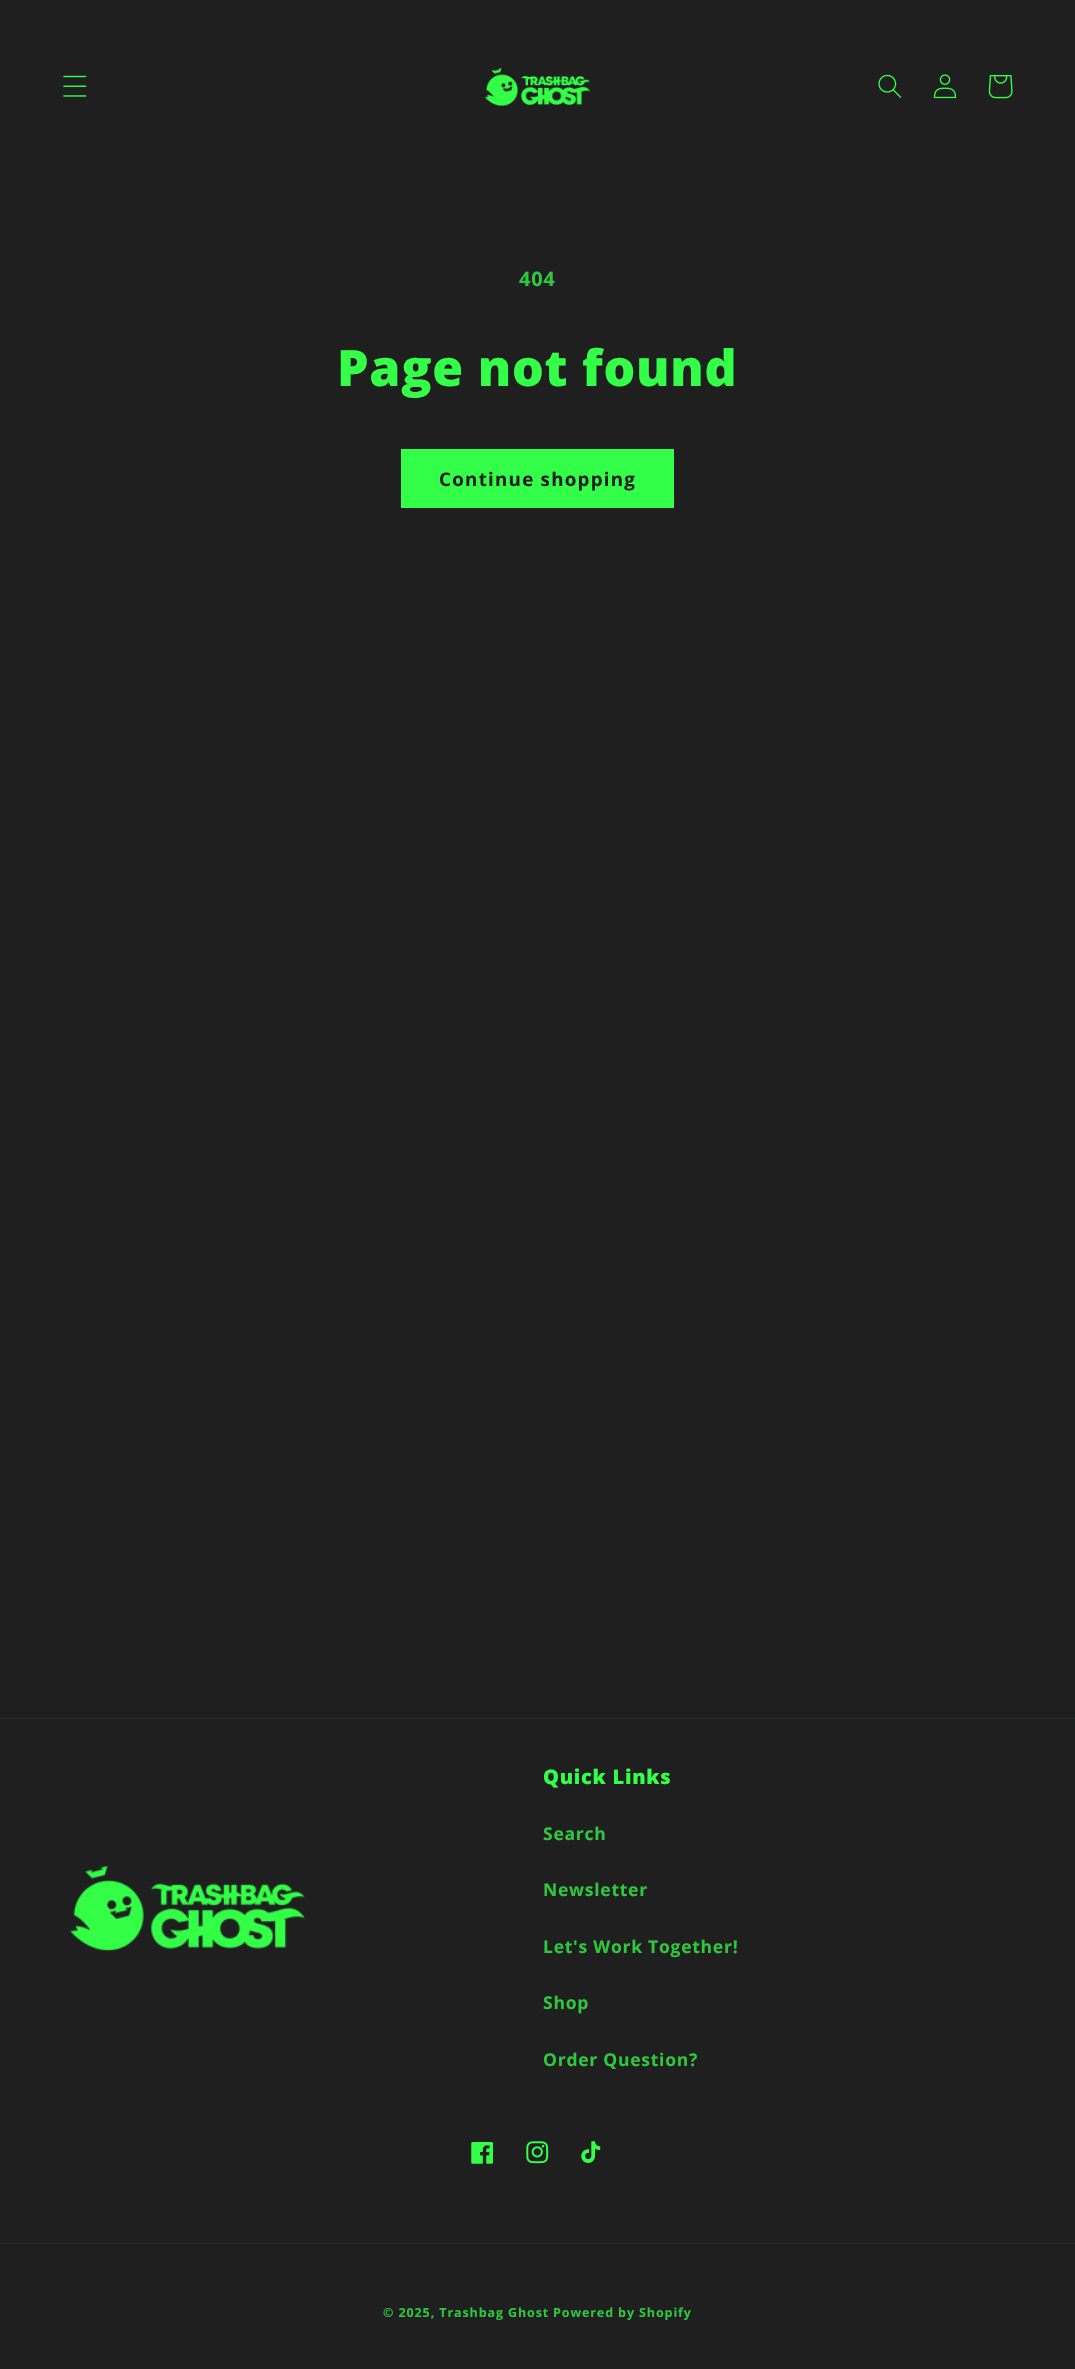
void draw(SkCanvas* canvas) {
    SkPaint paint;
    paint.setAntiAlias(true);
    auto face = [&](const char* family, int weight, float size, bool italic = false) {
        SkFontStyle style(weight, SkFontStyle::kNormal_Width,
            italic ? SkFontStyle::kItalic_Slant : SkFontStyle::kUpright_Slant);
        SkFont result(fontMgr->matchFamilyStyle(family, style), size);
        result.setSubpixel(true);
        return result;
    };
    auto writeSpaced = [&](const char* s, float x, float y, const SkFont& font, const SkPaint& ink, float letter, float word) {
        std::vector<SkGlyphID> glyphs(font.countText(s, strlen(s), SkTextEncoding::kUTF8));
        std::vector<float> xs(glyphs.size());
        font.textToGlyphs(s, strlen(s), SkTextEncoding::kUTF8, glyphs);
        font.getXPos(glyphs, xs, x);
        float extra = 0;
        for (size_t i = 0; i < glyphs.size(); i++) {
            xs[i] += extra;
            extra += letter + word * (glyphs[i] == font.unicharToGlyph(' '));
        }
        canvas->drawTextBlob(SkTextBlob::MakeFromPosHGlyphs(glyphs, xs, y, font), 0, 0, ink);
    };
    auto block = [&](float x, float y, float w, float h, SkColor color) {
        SkPaint ink(SkColor4f::FromColor(color));
        ink.setAntiAlias(true);
        canvas->drawRect(SkRect::MakeXYWH(x, y, w, h), ink);
    };
    auto paste = [&](const char* path, float x, float y, float w, float h) {
        auto image = SkImages::DeferredFromEncodedData(SkData::MakeFromFileName(path));
        canvas->drawImageRect(image, SkRect::MakeXYWH(x, y, w, h), SkSamplingOptions());
    };
    canvas->clear(SkColorSetRGB(31, 31, 31));
    paste("pic1.png", 63, 75, 24, 22);
    paste("pic2.png", 485, 68, 106, 38);
    paste("pic3.png", 878, 74, 24, 24);
    paste("pic4.png", 933, 74, 24, 25);
    paste("pic5.png", 988, 75, 25, 24);
    auto kFont1 = face("Open Sans", 700, 20);
    paint.setColor(SkColorSetRGB(46, 199, 62));
    writeSpaced("404", 519, 286, kFont1, paint, 0.75f, 0);
    auto kFont2 = face("Open Sans", 800, 50);
    paint.setColor(SkColorSetRGB(51, 255, 72));
    writeSpaced("Page not found", 337, 386, kFont2, paint, 0.75f, 0);
    block(401, 449, 273, 59, SkColorSetRGB(51, 255, 72));
    auto kFont3 = face("Open Sans", 700, 18.75f);
    paint.setColor(SkColorSetRGB(31, 31, 31));
    writeSpaced("Continue shopping", 439, 486, kFont3, paint, 1.25f, 0);
    block(0, 1718, 1075, 1, SkColorSetRGB(33, 49, 34));
    paste("pic6.png", 70, 1865, 235, 87);
    auto kFont4 = face("Open Sans", 800, 20);
    paint.setColor(SkColorSetRGB(51, 255, 72));
    writeSpaced("Quick Links", 543, 1784, kFont4, paint, 0.75f, 0);
    auto kFont5 = face("Open Sans", 700, 17.5f);
    paint.setColor(SkColorSetRGB(46, 199, 62));
    writeSpaced("Search", 543, 1840, kFont5, paint, 0.75f, 0);
    writeSpaced("Newsletter", 543, 1896, kFont5, paint, 0.75f, 0);
    writeSpaced("Let's Work Together!", 543, 1953, kFont5, paint, 0.75f, 0);
    writeSpaced("Shop", 543, 2009, kFont5, paint, 0.75f, 0);
    writeSpaced("Order Question?", 543, 2066, kFont5, paint, 0.75f, 0);
    paste("pic7.png", 471, 2142, 22, 22);
    paste("pic8.png", 526, 2141, 23, 23);
    paste("pic9.png", 581, 2141, 20, 22);
    block(0, 2243, 1075, 1, SkColorSetRGB(33, 49, 34));
    auto kFont6 = face("Open Sans", 700, 12.5f);
    writeSpaced("© 2025, Trashbag Ghost", 383, 2317, kFont6, paint, 0.9f, 0);
    writeSpaced("Powered by Shopify", 553, 2317, kFont6, paint, 0.9f, 0);
}
